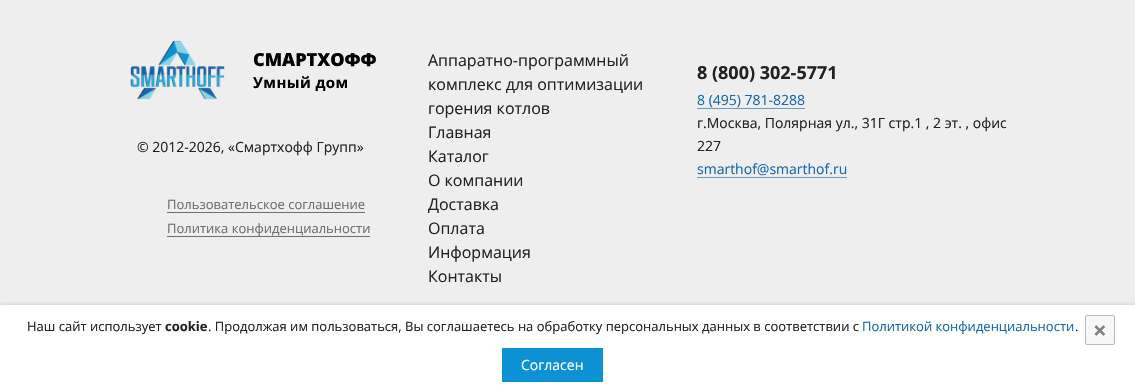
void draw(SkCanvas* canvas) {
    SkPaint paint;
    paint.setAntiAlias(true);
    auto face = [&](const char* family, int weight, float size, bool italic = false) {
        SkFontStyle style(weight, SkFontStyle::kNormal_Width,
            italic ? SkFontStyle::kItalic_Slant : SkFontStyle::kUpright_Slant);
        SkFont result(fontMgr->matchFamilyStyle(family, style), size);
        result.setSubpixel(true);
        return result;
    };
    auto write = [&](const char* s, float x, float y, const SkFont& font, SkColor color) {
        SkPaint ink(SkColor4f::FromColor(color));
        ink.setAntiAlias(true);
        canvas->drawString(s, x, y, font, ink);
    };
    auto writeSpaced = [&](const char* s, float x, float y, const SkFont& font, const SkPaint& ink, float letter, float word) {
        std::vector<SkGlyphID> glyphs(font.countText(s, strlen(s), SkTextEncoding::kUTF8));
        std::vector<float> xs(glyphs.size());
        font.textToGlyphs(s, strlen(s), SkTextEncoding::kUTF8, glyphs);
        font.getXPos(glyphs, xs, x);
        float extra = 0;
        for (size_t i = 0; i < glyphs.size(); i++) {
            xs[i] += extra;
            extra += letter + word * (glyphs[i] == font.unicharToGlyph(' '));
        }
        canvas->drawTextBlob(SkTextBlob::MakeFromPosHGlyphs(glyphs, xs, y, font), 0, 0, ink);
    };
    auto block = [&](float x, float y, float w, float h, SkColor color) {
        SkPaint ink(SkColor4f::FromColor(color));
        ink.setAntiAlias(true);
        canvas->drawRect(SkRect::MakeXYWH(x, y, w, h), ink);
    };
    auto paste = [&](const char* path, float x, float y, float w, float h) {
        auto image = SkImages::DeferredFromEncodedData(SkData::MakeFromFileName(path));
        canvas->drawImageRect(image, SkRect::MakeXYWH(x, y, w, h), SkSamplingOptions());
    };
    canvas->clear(SK_ColorWHITE);
    block(0, 0, 1135, 305, SkColorSetRGB(238, 238, 238));
    paste("pic1.png", 130, 40, 95, 60);
    auto kFont1 = face("Open Sans", 800, 18);
    write("СМАРТХОФФ", 253, 66, kFont1, SkColorSetRGB(1, 1, 1));
    auto kFont2 = face("Open Sans", 700, 15);
    paint.setColor(SkColorSetRGB(1, 1, 1));
    writeSpaced("Умный дом", 253, 88, kFont2, paint, 0.4f, 0);
    auto kFont3 = face("Open Sans", 400, 14);
    write("© 2012-2026, «Смартхофф Групп»", 137, 152, kFont3, SkColorSetRGB(34, 34, 34));
    auto kFont4 = face("Open Sans", 400, 13);
    write("Пользовательское соглашение", 167, 209, kFont4, SkColorSetRGB(111, 110, 110));
    block(167, 212, 198, 1, SkColorSetRGB(111, 110, 110));
    write("Политика конфиденциальности", 167, 233, kFont4, SkColorSetRGB(111, 110, 110));
    block(167, 236, 203, 1, SkColorSetRGB(111, 110, 110));
    auto kFont5 = face("Open Sans", 400, 16);
    write("Аппаратно-программный", 428, 66, kFont5, SkColorSetRGB(34, 34, 34));
    write("комплекс для оптимизации", 428, 90, kFont5, SkColorSetRGB(34, 34, 34));
    write("горения котлов", 428, 114, kFont5, SkColorSetRGB(34, 34, 34));
    write("Главная", 428, 138, kFont5, SkColorSetRGB(34, 34, 34));
    write("Каталог", 428, 162, kFont5, SkColorSetRGB(34, 34, 34));
    write("О компании", 428, 186, kFont5, SkColorSetRGB(34, 34, 34));
    write("Доставка", 428, 210, kFont5, SkColorSetRGB(34, 34, 34));
    write("Оплата", 428, 234, kFont5, SkColorSetRGB(34, 34, 34));
    write("Информация", 428, 258, kFont5, SkColorSetRGB(34, 34, 34));
    write("Контакты", 428, 282, kFont5, SkColorSetRGB(34, 34, 34));
    auto kFont6 = face("Open Sans", 700, 18);
    write("8 (800) 302-5771", 697, 79, kFont6, SkColorSetRGB(34, 34, 34));
    write("8 (495) 781-8288", 697, 105, kFont3, SkColorSetRGB(19, 103, 177));
    block(697, 108, 108, 1, SkColorSetRGB(103, 156, 191));
    write("г.Москва, Полярная ул., 31Г стр.1 , 2 эт. , офис", 697, 128, kFont3, SkColorSetRGB(34, 34, 34));
    write("227", 697, 151, kFont3, SkColorSetRGB(34, 34, 34));
    write("smarthof@smarthof.ru", 697, 174, kFont3, SkColorSetRGB(19, 103, 177));
    block(697, 177, 150, 1, SkColorSetRGB(103, 156, 191));
    canvas->save();
    canvas->clipRect(SkRect::MakeXYWH(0, 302, 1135, 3));
    paint.setColor(SkColorSetARGB(71, 32, 33, 36));
    paint.setMaskFilter(SkMaskFilter::MakeBlur(kNormal_SkBlurStyle, 3));
    canvas->drawRect(SkRect::MakeXYWH(0, 306, 1135, 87), paint);
    paint.setMaskFilter(nullptr);
    canvas->restore();
    write("Наш сайт использует", 27, 331, kFont4, SkColorSetRGB(34, 34, 34));
    auto kFont7 = face("Open Sans", 700, 13);
    write("cookie", 165, 331, kFont7, SkColorSetRGB(34, 34, 34));
    write(". Продолжая им пользоваться, Вы соглашаетесь на обработку персональных данных в соответствии с", 208, 331, kFont4, SkColorSetRGB(34, 34, 34));
    write("Политикой конфиденциальности", 862, 331, kFont4, SkColorSetRGB(19, 103, 177));
    write(".", 1075, 331, kFont4, SkColorSetRGB(34, 34, 34));
    block(502, 348, 101, 34, SkColorSetRGB(12, 145, 210));
    write("Согласен", 521, 370, kFont3, SK_ColorWHITE);
    paint.setColor(SkColorSetRGB(247, 247, 247));
    canvas->drawRoundRect(SkRect::MakeXYWH(1085.5f, 315.5f, 29, 29), 1.5f, 1.5f, paint);
    paint.setStyle(SkPaint::kStroke_Style);
    paint.setStrokeWidth(1);
    paint.setColor(SkColorSetRGB(186, 186, 186));
    canvas->drawRoundRect(SkRect::MakeXYWH(1085.5f, 315.5f, 29, 29), 1.5f, 1.5f, paint);
    auto kFont8 = face("Open Sans", 700, 24);
    write("×", 1093, 339, kFont8, SkColorSetRGB(128, 128, 128));
}
